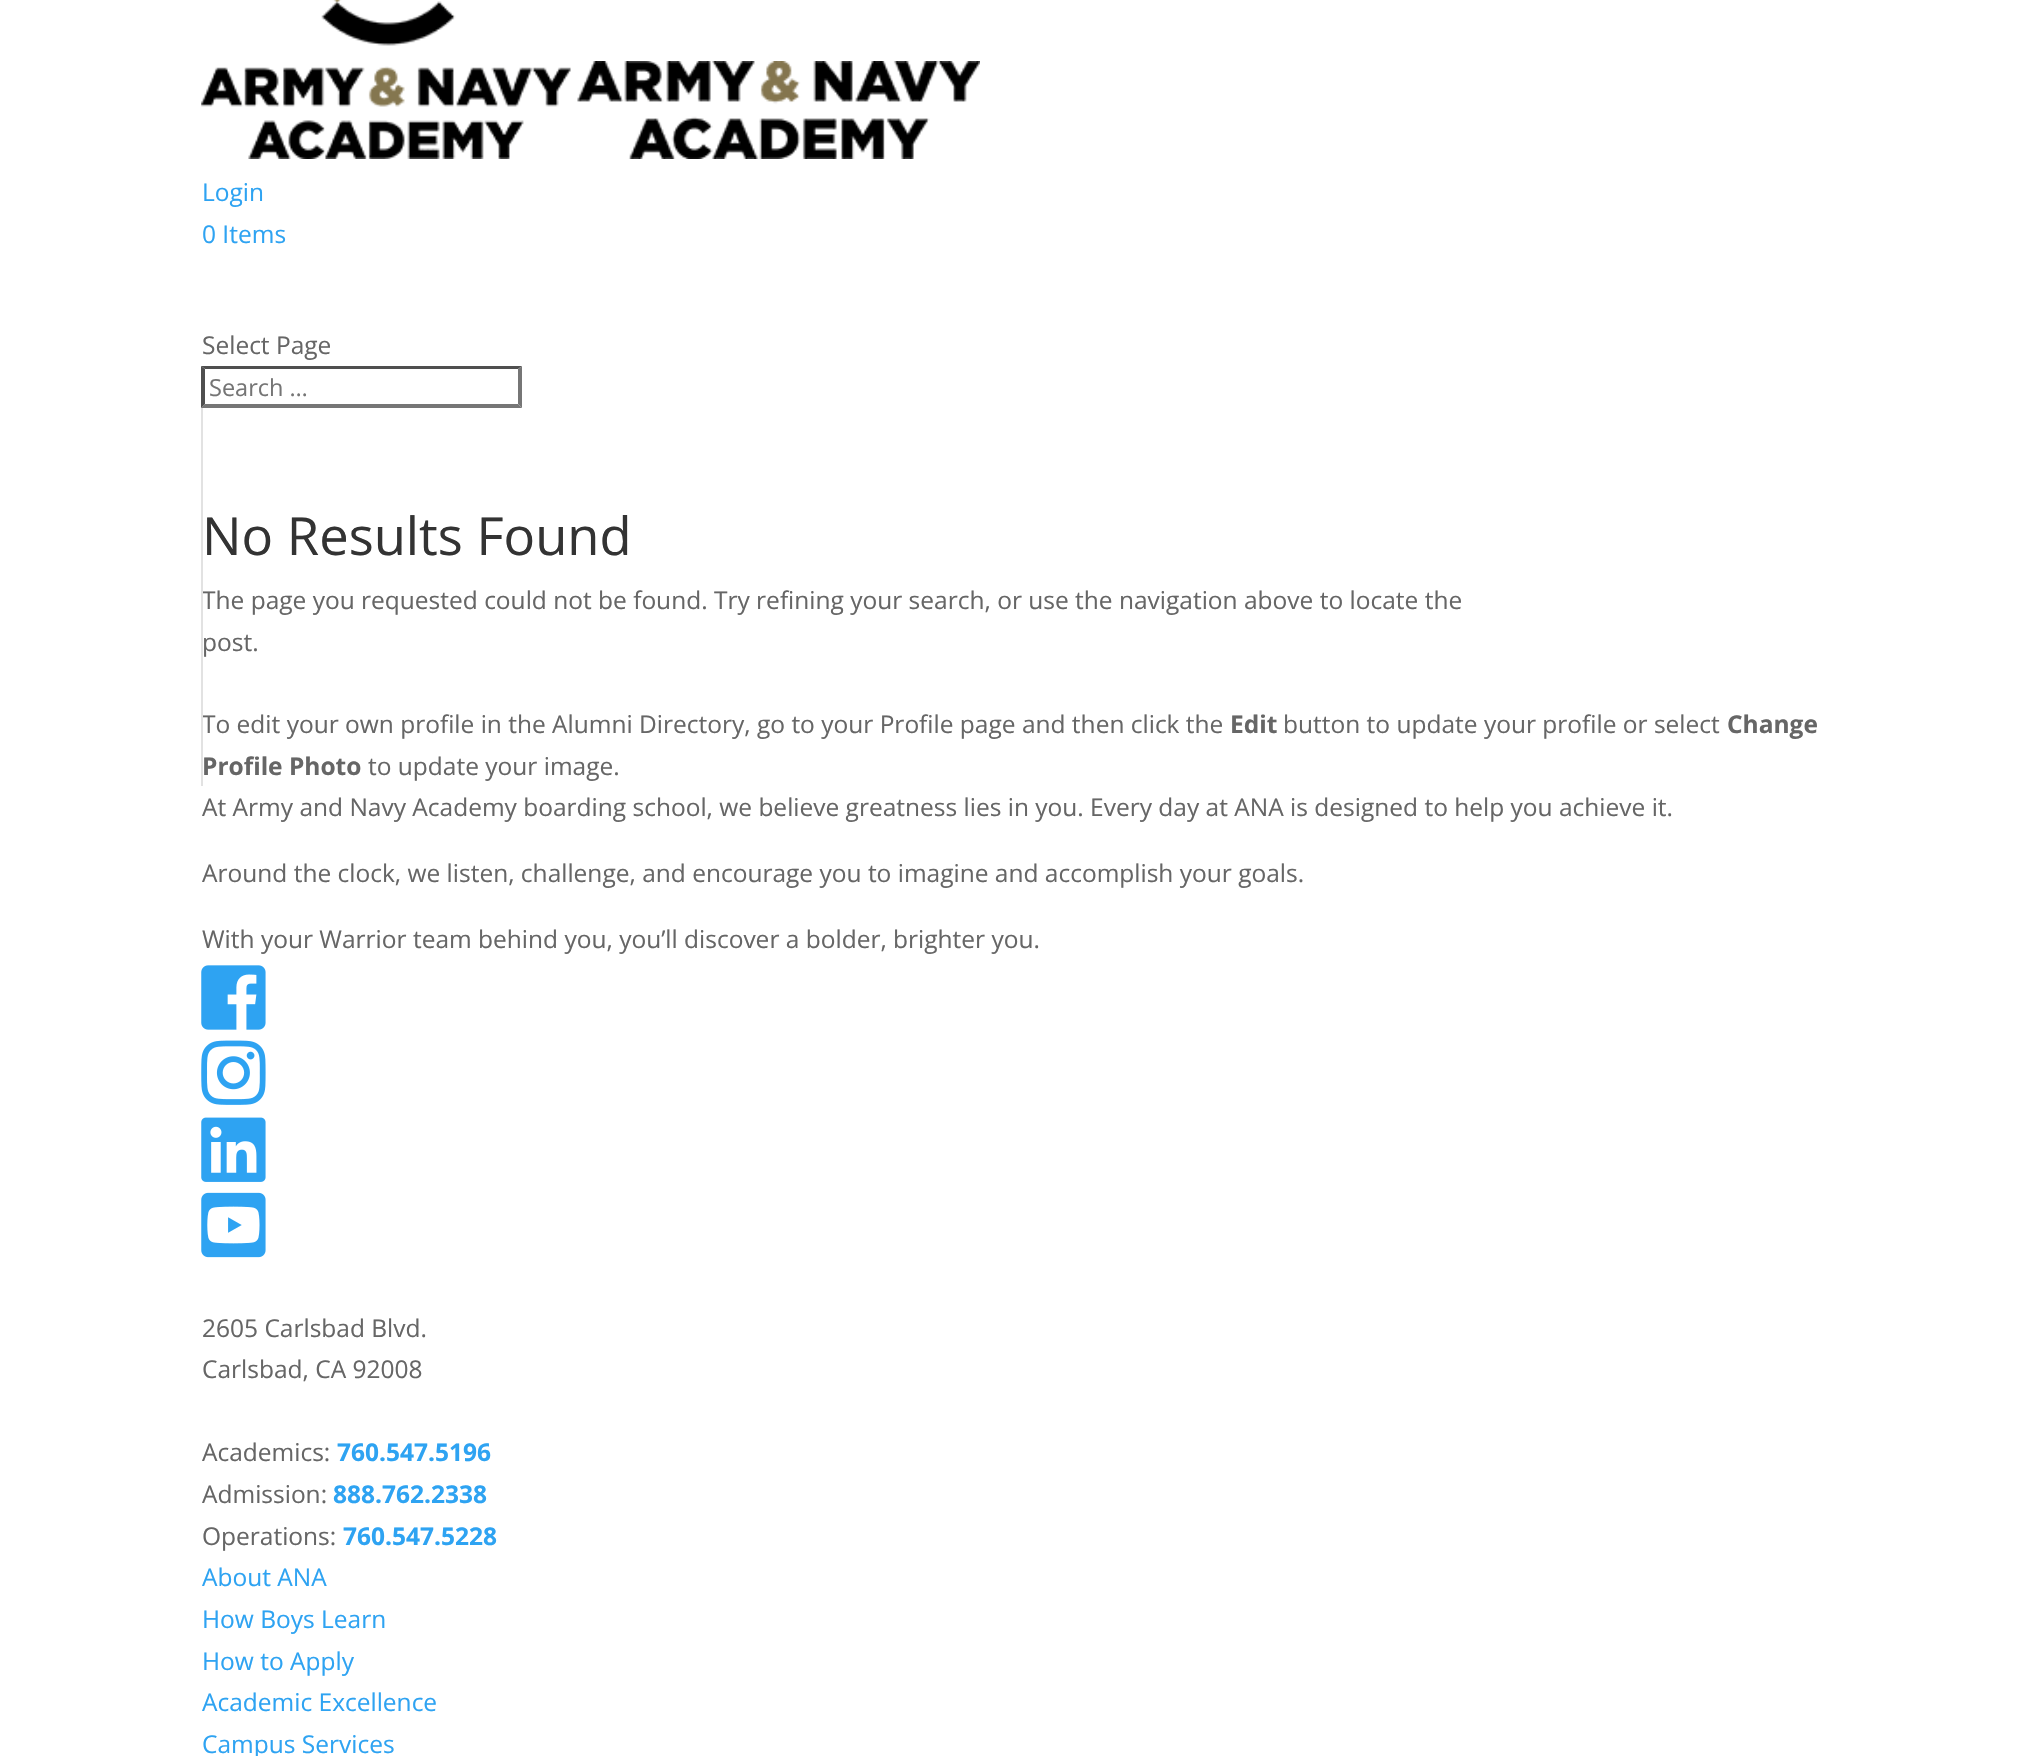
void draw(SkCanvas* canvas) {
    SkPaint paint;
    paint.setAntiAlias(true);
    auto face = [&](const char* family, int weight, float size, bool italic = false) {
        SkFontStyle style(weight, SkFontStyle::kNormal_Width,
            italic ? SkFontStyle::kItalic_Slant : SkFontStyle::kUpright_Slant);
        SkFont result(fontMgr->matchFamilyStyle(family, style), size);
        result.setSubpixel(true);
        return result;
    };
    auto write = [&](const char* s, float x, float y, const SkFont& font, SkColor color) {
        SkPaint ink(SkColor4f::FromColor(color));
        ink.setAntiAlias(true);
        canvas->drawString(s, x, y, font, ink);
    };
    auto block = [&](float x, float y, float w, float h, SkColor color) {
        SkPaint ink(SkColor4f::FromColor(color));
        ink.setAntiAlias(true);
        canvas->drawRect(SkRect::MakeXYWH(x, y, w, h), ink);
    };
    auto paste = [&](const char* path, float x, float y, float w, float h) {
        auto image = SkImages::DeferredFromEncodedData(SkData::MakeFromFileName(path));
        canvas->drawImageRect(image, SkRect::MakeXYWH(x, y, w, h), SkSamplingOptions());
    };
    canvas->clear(SK_ColorWHITE);
    paste("pic1.png", 201, 0, 370, 159);
    paste("pic2.png", 577, 61, 403, 98);
    auto kFont1 = face("Open Sans", 400, 24.5f);
    write("Login", 202, 201, kFont1, SkColorSetRGB(46, 163, 242));
    write("0 Items", 202, 243, kFont1, SkColorSetRGB(46, 163, 242));
    write("Select Page", 202, 354, kFont1, SkColorSetRGB(102, 102, 102));
    paint.setColor(SkColorSetRGB(79, 79, 79));
    canvas->drawPath(SkPathBuilder().moveTo(201, 366).lineTo(522, 366).lineTo(518, 369).lineTo(205, 369).close().detach(), paint);
    paint.setColor(SkColorSetRGB(118, 118, 118));
    canvas->drawPath(SkPathBuilder().moveTo(522, 366).lineTo(522, 408).lineTo(518, 404).lineTo(518, 369).close().detach(), paint);
    canvas->drawPath(SkPathBuilder().moveTo(522, 408).lineTo(201, 408).lineTo(205, 404).lineTo(518, 404).close().detach(), paint);
    paint.setColor(SkColorSetRGB(79, 79, 79));
    canvas->drawPath(SkPathBuilder().moveTo(201, 408).lineTo(201, 366).lineTo(205, 369).lineTo(205, 404).close().detach(), paint);
    auto kFont2 = face("Open Sans", 400, 23.5f);
    write("Search …", 209, 396, kFont2, SkColorSetRGB(117, 117, 117));
    write("The page you requested could not be found. Try refining your search, or use the navigation above to locate the", 202, 609, kFont1, SkColorSetRGB(102, 102, 102));
    write("To edit your own profile in the Alumni Directory, go to your Profile page and then click the", 202, 733, kFont1, SkColorSetRGB(102, 102, 102));
    block(201, 408, 2, 378, SkColorSetRGB(226, 226, 226));
    auto kFont3 = face("Open Sans", 400, 52.5f);
    write("No Results Found", 202, 555, kFont3, SkColorSetRGB(51, 51, 51));
    write("post.", 202, 651, kFont1, SkColorSetRGB(102, 102, 102));
    auto kFont4 = face("Open Sans", 700, 24.5f);
    write("Edit", 1230, 733, kFont4, SkColorSetRGB(102, 102, 102));
    write("button to update your profile or select", 1283, 733, kFont1, SkColorSetRGB(102, 102, 102));
    write("Change", 1727, 733, kFont4, SkColorSetRGB(102, 102, 102));
    write("Profile Photo", 202, 775, kFont4, SkColorSetRGB(102, 102, 102));
    write("to update your image.", 368, 775, kFont1, SkColorSetRGB(102, 102, 102));
    write("At Army and Navy Academy boarding school, we believe greatness lies in you. Every day at ANA is designed to help you achieve it.", 202, 816, kFont1, SkColorSetRGB(102, 102, 102));
    write("Around the clock, we listen, challenge, and encourage you to imagine and accomplish your goals.", 202, 882, kFont1, SkColorSetRGB(102, 102, 102));
    write("With your Warrior team behind you, you’ll discover a bolder, brighter you.", 202, 948, kFont1, SkColorSetRGB(102, 102, 102));
    paste("pic3.png", 201, 965, 65, 65);
    paste("pic4.png", 201, 1040, 65, 65);
    paste("pic5.png", 201, 1117, 65, 65);
    paste("pic6.png", 201, 1192, 65, 66);
    write("2605 Carlsbad Blvd.", 202, 1337, kFont1, SkColorSetRGB(102, 102, 102));
    write("Carlsbad, CA 92008", 202, 1378, kFont1, SkColorSetRGB(102, 102, 102));
    write("Academics:", 202, 1461, kFont1, SkColorSetRGB(102, 102, 102));
    write("760.547.5196", 337, 1461, kFont4, SkColorSetRGB(46, 163, 242));
    write("Admission:", 202, 1503, kFont1, SkColorSetRGB(102, 102, 102));
    write("888.762.2338", 333, 1503, kFont4, SkColorSetRGB(46, 163, 242));
    write("Operations:", 202, 1545, kFont1, SkColorSetRGB(102, 102, 102));
    write("760.547.5228", 343, 1545, kFont4, SkColorSetRGB(46, 163, 242));
    write("About ANA", 202, 1586, kFont1, SkColorSetRGB(46, 163, 242));
    write("How Boys Learn", 202, 1628, kFont1, SkColorSetRGB(46, 163, 242));
    write("How to Apply", 202, 1670, kFont1, SkColorSetRGB(46, 163, 242));
    write("Academic Excellence", 202, 1711, kFont1, SkColorSetRGB(46, 163, 242));
    write("Campus Services", 202, 1753, kFont1, SkColorSetRGB(46, 163, 242));
}
